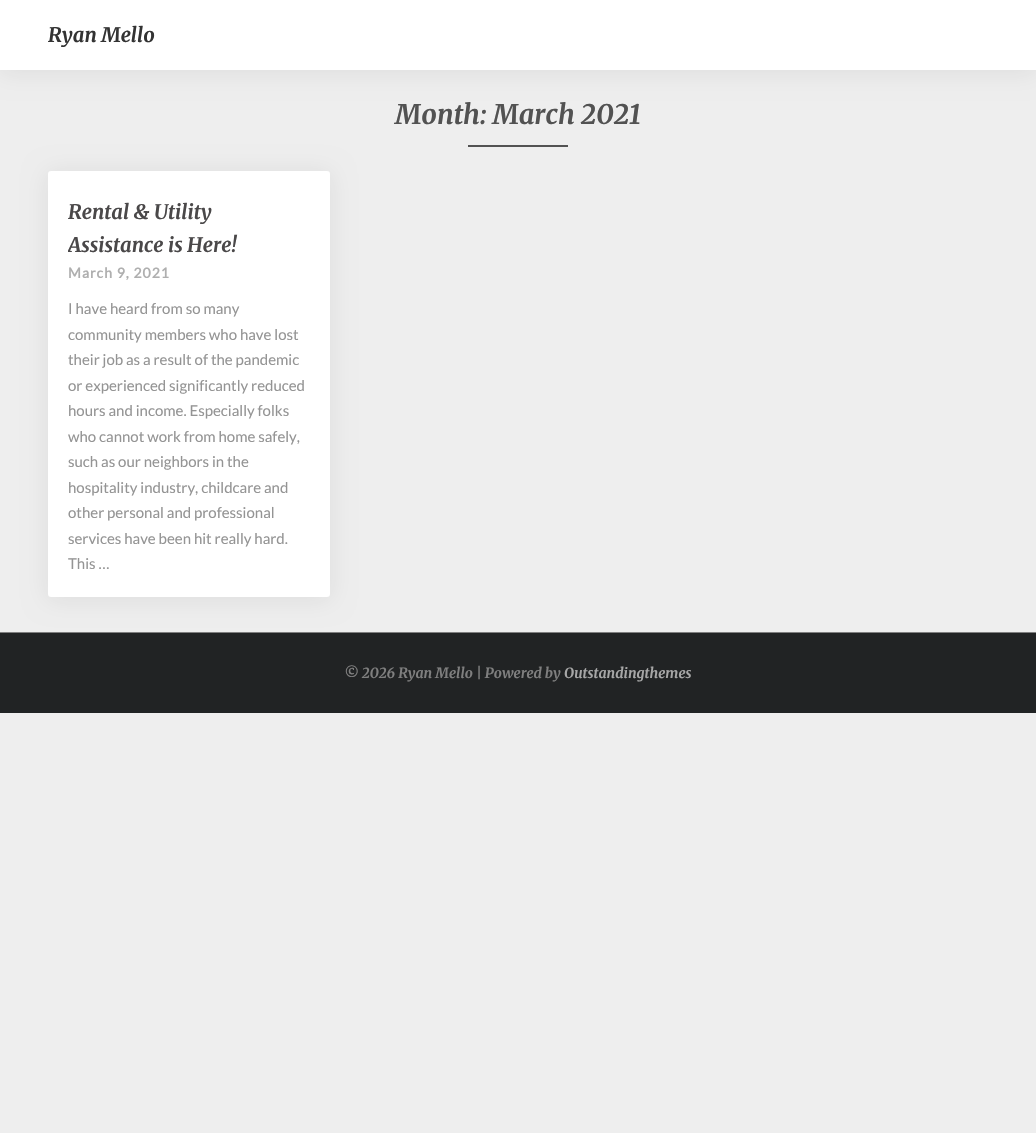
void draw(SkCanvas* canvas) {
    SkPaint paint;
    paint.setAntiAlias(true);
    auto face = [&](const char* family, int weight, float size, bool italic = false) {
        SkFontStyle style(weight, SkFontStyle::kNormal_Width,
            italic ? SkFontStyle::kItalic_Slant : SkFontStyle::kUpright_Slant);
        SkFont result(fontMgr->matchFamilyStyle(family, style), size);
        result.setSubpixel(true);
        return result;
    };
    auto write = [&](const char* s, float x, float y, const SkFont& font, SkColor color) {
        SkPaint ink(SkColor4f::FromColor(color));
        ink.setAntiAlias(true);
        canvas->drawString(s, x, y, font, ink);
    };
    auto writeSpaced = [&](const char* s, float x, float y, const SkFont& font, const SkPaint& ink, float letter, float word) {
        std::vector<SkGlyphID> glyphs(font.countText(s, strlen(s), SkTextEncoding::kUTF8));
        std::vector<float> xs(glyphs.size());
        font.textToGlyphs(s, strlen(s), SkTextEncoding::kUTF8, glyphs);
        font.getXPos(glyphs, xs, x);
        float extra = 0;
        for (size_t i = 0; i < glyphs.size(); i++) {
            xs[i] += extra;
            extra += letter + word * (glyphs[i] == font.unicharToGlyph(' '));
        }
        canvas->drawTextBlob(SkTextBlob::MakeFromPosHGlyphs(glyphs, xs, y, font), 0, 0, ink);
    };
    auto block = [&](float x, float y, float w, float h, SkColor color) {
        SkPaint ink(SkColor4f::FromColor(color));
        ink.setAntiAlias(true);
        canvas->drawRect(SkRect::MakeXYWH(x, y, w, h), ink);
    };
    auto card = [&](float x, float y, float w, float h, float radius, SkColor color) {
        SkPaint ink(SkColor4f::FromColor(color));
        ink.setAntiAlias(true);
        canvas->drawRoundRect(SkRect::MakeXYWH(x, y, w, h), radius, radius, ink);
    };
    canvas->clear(SkColorSetRGB(238, 238, 238));
    paint.setColor(SkColorSetARGB(20, 0, 0, 0));
    paint.setMaskFilter(SkMaskFilter::MakeBlur(kNormal_SkBlurStyle, 12.5f));
    canvas->drawRect(SkRect::MakeXYWH(0, 2, 1036, 70), paint);
    paint.setMaskFilter(nullptr);
    block(0, 0, 1036, 70, SK_ColorWHITE);
    auto kFont1 = face("Merriweather", 300, 20, true);
    write("Ryan Mello", 48, 42, kFont1, SkColorSetRGB(51, 51, 51));
    auto kFont2 = face("Merriweather", 300, 27, true);
    write("Month: March 2021", 395, 124, kFont2, SkColorSetRGB(82, 82, 82));
    block(468, 145, 100, 2, SkColorSetRGB(82, 82, 82));
    block(0, 633, 1036, 80, SkColorSetRGB(33, 35, 36));
    block(0, 632, 1036, 1, SkColorSetRGB(127, 127, 127));
    paint.setMaskFilter(SkMaskFilter::MakeBlur(kNormal_SkBlurStyle, 12.5f));
    canvas->drawRoundRect(SkRect::MakeXYWH(48, 173, 282, 426), 3, 3, paint);
    paint.setMaskFilter(nullptr);
    card(48, 171, 282, 426, 3, SK_ColorWHITE);
    write("Rental & Utility", 68, 219, kFont1, SkColorSetRGB(74, 72, 73));
    canvas->save();
    canvas->clipRect(SkRect::MakeXYWH(68, 191, 242, 66));
    write("Assistance is Here!", 68, 252, kFont1, SkColorSetRGB(74, 72, 73));
    canvas->restore();
    auto kFont3 = face("Lato", 700, 14);
    paint.setColor(SkColorSetRGB(175, 175, 175));
    writeSpaced("March 9, 2021", 68, 278, kFont3, paint, 1, 0);
    auto kFont4 = face("Lato", 400, 15);
    write("I have heard from so many", 68, 314, kFont4, SkColorSetRGB(148, 148, 148));
    write("community members who have lost", 68, 340, kFont4, SkColorSetRGB(148, 148, 148));
    write("their job as a result of the pandemic", 68, 365, kFont4, SkColorSetRGB(148, 148, 148));
    write("or experienced significantly reduced", 68, 391, kFont4, SkColorSetRGB(148, 148, 148));
    write("hours and income. Especially folks", 68, 416, kFont4, SkColorSetRGB(148, 148, 148));
    write("who cannot work from home safely,", 68, 442, kFont4, SkColorSetRGB(148, 148, 148));
    write("such as our neighbors in the", 68, 467, kFont4, SkColorSetRGB(148, 148, 148));
    write("hospitality industry, childcare and", 68, 493, kFont4, SkColorSetRGB(148, 148, 148));
    write("other personal and professional", 68, 518, kFont4, SkColorSetRGB(148, 148, 148));
    write("services have been hit really hard.", 68, 544, kFont4, SkColorSetRGB(148, 148, 148));
    write("This …", 68, 569, kFont4, SkColorSetRGB(148, 148, 148));
    auto kFont5 = face("Merriweather", 300, 14, true);
    write("© 2026 Ryan Mello | Powered by", 344, 678, kFont5, SkColorSetRGB(127, 127, 127));
    write("Outstandingthemes", 564, 678, kFont5, SkColorSetRGB(167, 167, 167));
}
